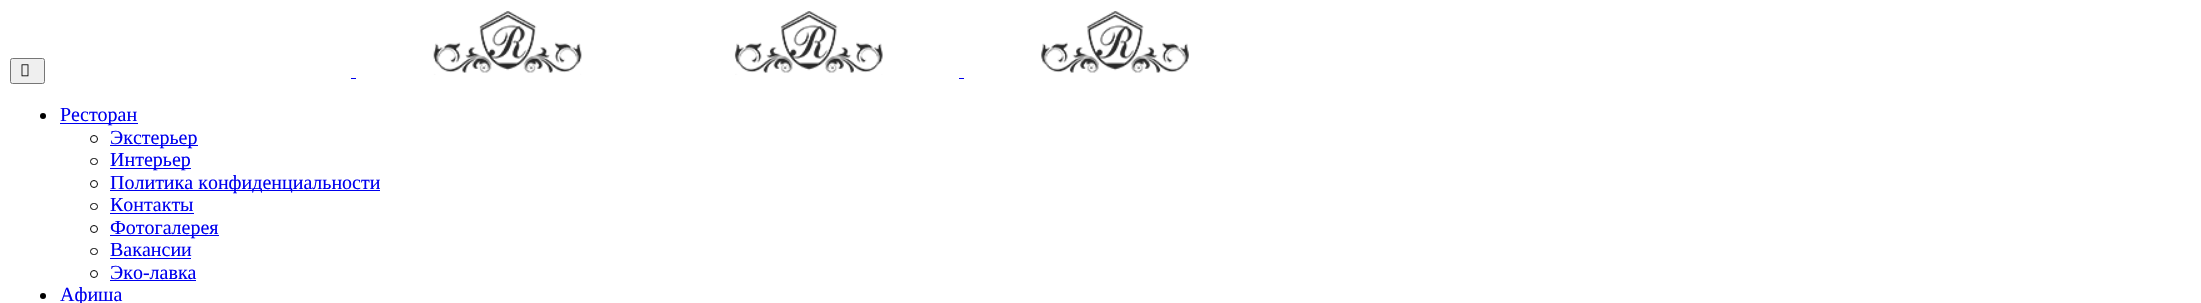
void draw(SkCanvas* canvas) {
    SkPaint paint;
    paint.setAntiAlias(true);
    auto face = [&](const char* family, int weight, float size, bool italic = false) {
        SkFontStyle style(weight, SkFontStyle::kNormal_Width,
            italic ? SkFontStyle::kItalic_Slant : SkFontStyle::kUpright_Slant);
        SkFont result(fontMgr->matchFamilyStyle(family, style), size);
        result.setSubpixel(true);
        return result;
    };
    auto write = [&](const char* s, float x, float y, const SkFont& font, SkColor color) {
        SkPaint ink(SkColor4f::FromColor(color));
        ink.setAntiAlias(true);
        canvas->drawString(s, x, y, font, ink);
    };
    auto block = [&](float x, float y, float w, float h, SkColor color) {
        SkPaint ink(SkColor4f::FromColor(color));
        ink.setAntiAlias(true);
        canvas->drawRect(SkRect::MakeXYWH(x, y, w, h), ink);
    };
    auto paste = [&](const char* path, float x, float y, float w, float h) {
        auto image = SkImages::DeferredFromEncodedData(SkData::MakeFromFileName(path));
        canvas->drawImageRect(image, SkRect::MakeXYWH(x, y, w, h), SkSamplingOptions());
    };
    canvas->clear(SK_ColorWHITE);
    paint.setColor(SkColorSetRGB(239, 239, 239));
    canvas->drawRoundRect(SkRect::MakeXYWH(10.5f, 58.5f, 34, 25), 2, 2, paint);
    paint.setStyle(SkPaint::kStroke_Style);
    paint.setStrokeWidth(1);
    paint.setColor(SkColorSetRGB(118, 118, 118));
    canvas->drawRoundRect(SkRect::MakeXYWH(10.5f, 58.5f, 34, 25), 2, 2, paint);
    paste("pic1.png", 21, 64, 8, 13);
    block(351, 78, 5, 1, SkColorSetRGB(0, 0, 238));
    paste("pic2.png", 433, 11, 149, 64);
    paste("pic3.png", 734, 11, 149, 64);
    block(959, 78, 5, 1, SkColorSetRGB(0, 0, 238));
    paste("pic4.png", 1041, 11, 148, 62);
    paint.setStyle(SkPaint::kFill_Style);
    paint.setColor(SK_ColorBLACK);
    canvas->drawCircle(43, 116, 3, paint);
    block(60, 123, 78, 1, SkColorSetRGB(0, 0, 238));
    auto kFont1 = face("Liberation Serif", 400, 20);
    write("Ресторан", 60, 121, kFont1, SkColorSetRGB(0, 0, 238));
    paint.setStyle(SkPaint::kStroke_Style);
    canvas->drawCircle(94, 139, 3.5f, paint);
    block(110, 145, 88, 1, SkColorSetRGB(0, 0, 238));
    write("Экстерьер", 110, 144, kFont1, SkColorSetRGB(0, 0, 238));
    canvas->drawRoundRect(SkRect::MakeXYWH(90.5f, 158.5f, 7, 6), 3, 3, paint);
    block(110, 168, 81, 1, SkColorSetRGB(0, 0, 238));
    write("Интерьер", 110, 166, kFont1, SkColorSetRGB(0, 0, 238));
    canvas->drawCircle(94, 184, 3.5f, paint);
    block(110, 190, 270, 1, SkColorSetRGB(0, 0, 238));
    write("Политика конфиденциальности", 110, 189, kFont1, SkColorSetRGB(0, 0, 238));
    canvas->drawRoundRect(SkRect::MakeXYWH(90.5f, 203.5f, 7, 6), 3, 3, paint);
    write("Контакты", 110, 211, kFont1, SkColorSetRGB(0, 0, 238));
    block(110, 213, 84, 1, SkColorSetRGB(0, 0, 238));
    canvas->drawCircle(94, 229, 3.5f, paint);
    block(110, 235, 109, 1, SkColorSetRGB(0, 0, 238));
    write("Фотогалерея", 110, 234, kFont1, SkColorSetRGB(0, 0, 238));
    canvas->drawRoundRect(SkRect::MakeXYWH(90.5f, 248.5f, 7, 6), 3, 3, paint);
    write("Вакансии", 110, 256, kFont1, SkColorSetRGB(0, 0, 238));
    block(110, 258, 81, 1, SkColorSetRGB(0, 0, 238));
    canvas->drawCircle(94, 274, 3.5f, paint);
    write("Эко-лавка", 110, 279, kFont1, SkColorSetRGB(0, 0, 238));
    block(110, 280, 86, 1, SkColorSetRGB(0, 0, 238));
    paint.setStyle(SkPaint::kFill_Style);
    canvas->drawCircle(43, 296, 3, paint);
    write("Афиша", 60, 301, kFont1, SkColorSetRGB(0, 0, 238));
}
